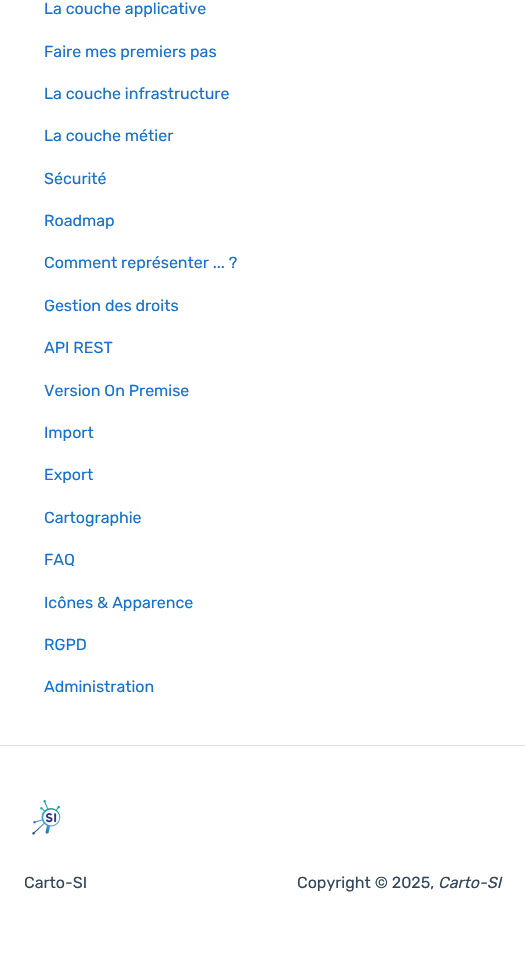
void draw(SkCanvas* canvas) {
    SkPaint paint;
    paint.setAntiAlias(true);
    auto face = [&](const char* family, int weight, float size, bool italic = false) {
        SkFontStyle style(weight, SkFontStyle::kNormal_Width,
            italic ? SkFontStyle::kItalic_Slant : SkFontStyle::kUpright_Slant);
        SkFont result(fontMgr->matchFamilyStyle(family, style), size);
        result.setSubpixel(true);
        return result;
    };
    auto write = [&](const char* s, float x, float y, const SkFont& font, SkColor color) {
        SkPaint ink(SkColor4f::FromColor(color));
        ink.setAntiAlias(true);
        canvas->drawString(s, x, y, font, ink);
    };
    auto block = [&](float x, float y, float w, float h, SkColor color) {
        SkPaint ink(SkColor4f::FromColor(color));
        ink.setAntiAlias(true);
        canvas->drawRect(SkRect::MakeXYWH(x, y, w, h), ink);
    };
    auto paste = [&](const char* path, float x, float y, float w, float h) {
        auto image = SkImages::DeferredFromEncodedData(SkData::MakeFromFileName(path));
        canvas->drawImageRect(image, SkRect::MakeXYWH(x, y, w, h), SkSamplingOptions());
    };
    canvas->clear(SK_ColorWHITE);
    auto kFont1 = face("Rubik", 400, 16);
    write("La couche applicative", 44, 14, kFont1, SkColorSetRGB(23, 115, 209));
    write("Faire mes premiers pas", 44, 57, kFont1, SkColorSetRGB(23, 115, 209));
    write("La couche infrastructure", 44, 99, kFont1, SkColorSetRGB(23, 115, 209));
    write("La couche métier", 44, 141, kFont1, SkColorSetRGB(23, 115, 209));
    write("Sécurité", 44, 184, kFont1, SkColorSetRGB(23, 115, 209));
    write("Roadmap", 44, 226, kFont1, SkColorSetRGB(23, 115, 209));
    write("Comment représenter ... ?", 44, 268, kFont1, SkColorSetRGB(23, 115, 209));
    write("Gestion des droits", 44, 311, kFont1, SkColorSetRGB(23, 115, 209));
    write("API REST", 44, 353, kFont1, SkColorSetRGB(23, 115, 209));
    write("Version On Premise", 44, 396, kFont1, SkColorSetRGB(23, 115, 209));
    write("Import", 44, 438, kFont1, SkColorSetRGB(23, 115, 209));
    write("Export", 44, 480, kFont1, SkColorSetRGB(23, 115, 209));
    write("Cartographie", 44, 523, kFont1, SkColorSetRGB(23, 115, 209));
    write("FAQ", 44, 565, kFont1, SkColorSetRGB(23, 115, 209));
    write("Icônes & Apparence", 44, 608, kFont1, SkColorSetRGB(23, 115, 209));
    write("RGPD", 44, 650, kFont1, SkColorSetRGB(23, 115, 209));
    write("Administration", 44, 692, kFont1, SkColorSetRGB(23, 115, 209));
    block(0, 745, 525, 1, SkColorSetRGB(224, 224, 224));
    paste("pic1.png", 32, 800, 29, 35);
    write("Carto-SI", 24, 888, kFont1, SkColorSetRGB(51, 71, 91));
    write("Copyright © 2025,", 297, 888, kFont1, SkColorSetRGB(51, 71, 91));
    auto kFont2 = face("Rubik", 400, 16, true);
    write("Carto-SI", 438, 888, kFont2, SkColorSetRGB(51, 71, 91));
}
